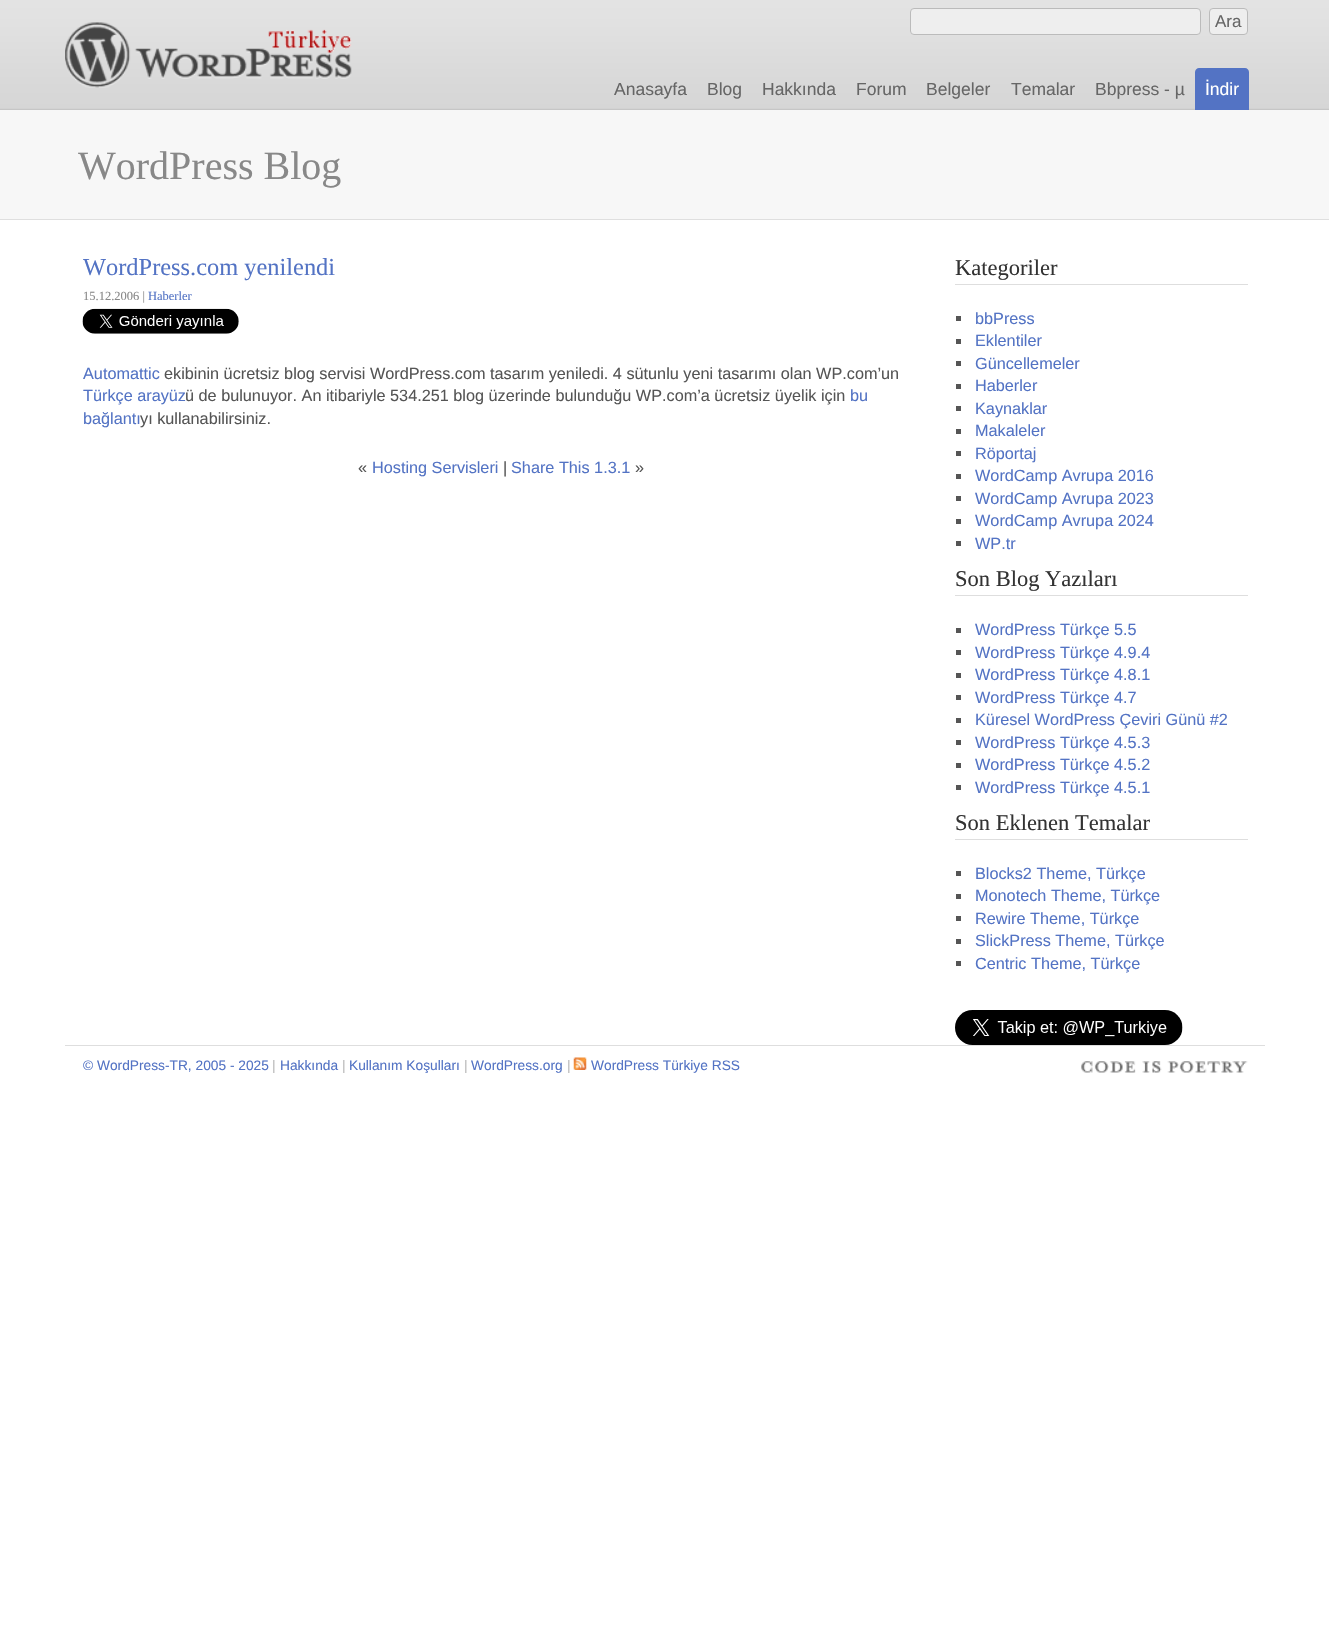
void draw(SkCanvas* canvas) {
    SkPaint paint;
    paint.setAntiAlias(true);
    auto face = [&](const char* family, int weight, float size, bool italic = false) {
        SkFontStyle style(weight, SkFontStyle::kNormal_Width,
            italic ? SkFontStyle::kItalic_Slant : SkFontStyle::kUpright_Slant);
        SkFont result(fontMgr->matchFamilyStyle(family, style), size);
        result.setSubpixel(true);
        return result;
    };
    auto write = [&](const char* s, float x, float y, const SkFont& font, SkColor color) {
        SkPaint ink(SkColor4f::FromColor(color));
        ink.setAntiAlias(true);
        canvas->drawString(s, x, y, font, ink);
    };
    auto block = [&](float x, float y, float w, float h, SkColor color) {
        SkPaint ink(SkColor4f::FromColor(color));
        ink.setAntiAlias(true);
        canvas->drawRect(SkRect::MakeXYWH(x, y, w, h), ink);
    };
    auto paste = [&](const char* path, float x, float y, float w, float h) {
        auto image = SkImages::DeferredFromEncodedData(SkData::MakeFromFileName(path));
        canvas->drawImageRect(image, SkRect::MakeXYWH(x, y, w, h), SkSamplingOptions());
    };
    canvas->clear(SK_ColorWHITE);
    paste("pic1.png", 0, 0, 1329, 110);
    paste("pic2.png", 65, 22, 287, 66);
    paint.setColor(SkColorSetRGB(238, 238, 238));
    canvas->drawRoundRect(SkRect::MakeXYWH(910.5f, 8.5f, 290, 26), 3.5f, 3.5f, paint);
    paint.setStyle(SkPaint::kStroke_Style);
    paint.setStrokeWidth(1);
    paint.setColor(SkColorSetRGB(187, 187, 187));
    canvas->drawRoundRect(SkRect::MakeXYWH(910.5f, 8.5f, 290, 26), 3.5f, 3.5f, paint);
    paint.setStyle(SkPaint::kFill_Style);
    paint.setColor(SkColorSetRGB(238, 238, 238));
    canvas->drawRoundRect(SkRect::MakeXYWH(1209.5f, 8.5f, 38, 26), 3.5f, 3.5f, paint);
    paint.setStyle(SkPaint::kStroke_Style);
    paint.setColor(SkColorSetRGB(187, 187, 187));
    canvas->drawRoundRect(SkRect::MakeXYWH(1209.5f, 8.5f, 38, 26), 3.5f, 3.5f, paint);
    auto kFont1 = face("Liberation Sans", 400, 17);
    write("Ara", 1215, 27, kFont1, SkColorSetRGB(102, 102, 102));
    auto kFont2 = face("Liberation Sans", 400, 17.5f);
    write("Anasayfa", 614, 95, kFont2, SkColorSetRGB(102, 102, 102));
    write("Blog", 707, 95, kFont2, SkColorSetRGB(102, 102, 102));
    write("Hakkında", 762, 95, kFont2, SkColorSetRGB(102, 102, 102));
    write("Forum", 856, 95, kFont2, SkColorSetRGB(102, 102, 102));
    write("Belgeler", 926, 95, kFont2, SkColorSetRGB(102, 102, 102));
    write("Temalar", 1011, 95, kFont2, SkColorSetRGB(102, 102, 102));
    write("Bbpress - µ", 1095, 95, kFont2, SkColorSetRGB(102, 102, 102));
    paint.setStyle(SkPaint::kFill_Style);
    paint.setColor(SkColorSetRGB(83, 115, 196));
    canvas->drawPath(SkPathBuilder().moveTo(1199, 68).lineTo(1245, 68).cubicTo(1247, 68, 1249, 70, 1249, 72).lineTo(1249, 110).lineTo(1195, 110).lineTo(1195, 72).cubicTo(1195, 70, 1197, 68, 1199, 68).close().detach(), paint);
    write("İndir", 1205, 95, kFont2, SK_ColorWHITE);
    block(0, 110, 1329, 109, SkColorSetRGB(247, 247, 247));
    block(0, 219, 1329, 1, SkColorSetRGB(223, 223, 223));
    auto kFont3 = face("Liberation Serif", 400, 40);
    write("WordPress Blog", 78, 179, kFont3, SkColorSetRGB(136, 136, 136));
    auto kFont4 = face("Liberation Serif", 400, 24.4f);
    write("WordPress.com yenilendi", 83, 275, kFont4, SkColorSetRGB(83, 115, 196));
    auto kFont5 = face("Liberation Serif", 400, 12.5f);
    write("15.12.2006 |", 83, 300, kFont5, SkColorSetRGB(136, 136, 136));
    write("Haberler", 148, 300, kFont5, SkColorSetRGB(83, 115, 196));
    paste("pic3.png", 82, 308, 157, 26);
    auto kFont6 = face("Liberation Sans", 400, 16.25f);
    write("Automattic", 83, 379, kFont6, SkColorSetRGB(83, 115, 196));
    write("ekibinin ücretsiz blog servisi WordPress.com tasarım yeniledi. 4 sütunlu yeni tasarımı olan WP.com’un", 164, 379, kFont6, SkColorSetRGB(85, 85, 85));
    write("Türkçe arayüz", 83, 401, kFont6, SkColorSetRGB(83, 115, 196));
    write("ü de bulunuyor. An itibariyle 534.251 blog üzerinde bulunduğu WP.com’a ücretsiz üyelik için", 185, 401, kFont6, SkColorSetRGB(85, 85, 85));
    write("bu", 850, 401, kFont6, SkColorSetRGB(83, 115, 196));
    write("bağlantı", 83, 424, kFont6, SkColorSetRGB(83, 115, 196));
    write("yı kullanabilirsiniz.", 140, 424, kFont6, SkColorSetRGB(85, 85, 85));
    write("«", 358, 473, kFont6, SkColorSetRGB(85, 85, 85));
    write("Hosting Servisleri", 372, 473, kFont6, SkColorSetRGB(83, 115, 196));
    write("|", 503, 473, kFont6, SkColorSetRGB(85, 85, 85));
    write("Share This 1.3.1", 511, 473, kFont6, SkColorSetRGB(83, 115, 196));
    write("»", 635, 473, kFont6, SkColorSetRGB(85, 85, 85));
    block(955, 284, 293, 1, SkColorSetRGB(222, 222, 222));
    auto kFont7 = face("Liberation Serif", 400, 22.5f);
    write("Kategoriler", 955, 275, kFont7, SkColorSetRGB(51, 51, 51));
    block(956, 316, 5, 5, SkColorSetRGB(85, 85, 85));
    write("bbPress", 975, 324, kFont6, SkColorSetRGB(83, 115, 196));
    block(956, 339, 5, 5, SkColorSetRGB(85, 85, 85));
    write("Eklentiler", 975, 346, kFont6, SkColorSetRGB(83, 115, 196));
    block(956, 361, 5, 5, SkColorSetRGB(85, 85, 85));
    write("Güncellemeler", 975, 369, kFont6, SkColorSetRGB(83, 115, 196));
    block(956, 384, 5, 5, SkColorSetRGB(85, 85, 85));
    write("Haberler", 975, 391, kFont6, SkColorSetRGB(83, 115, 196));
    block(956, 406, 5, 5, SkColorSetRGB(85, 85, 85));
    write("Kaynaklar", 975, 414, kFont6, SkColorSetRGB(83, 115, 196));
    block(956, 429, 5, 5, SkColorSetRGB(85, 85, 85));
    write("Makaleler", 975, 436, kFont6, SkColorSetRGB(83, 115, 196));
    block(956, 451, 5, 5, SkColorSetRGB(85, 85, 85));
    write("Röportaj", 975, 459, kFont6, SkColorSetRGB(83, 115, 196));
    block(956, 474, 5, 5, SkColorSetRGB(85, 85, 85));
    write("WordCamp Avrupa 2016", 975, 481, kFont6, SkColorSetRGB(83, 115, 196));
    block(956, 496, 5, 5, SkColorSetRGB(85, 85, 85));
    write("WordCamp Avrupa 2023", 975, 504, kFont6, SkColorSetRGB(83, 115, 196));
    block(956, 519, 5, 5, SkColorSetRGB(85, 85, 85));
    write("WordCamp Avrupa 2024", 975, 526, kFont6, SkColorSetRGB(83, 115, 196));
    block(956, 541, 5, 5, SkColorSetRGB(85, 85, 85));
    write("WP.tr", 975, 549, kFont6, SkColorSetRGB(83, 115, 196));
    block(955, 595, 293, 1, SkColorSetRGB(222, 222, 222));
    write("Son Blog Yazıları", 955, 586, kFont7, SkColorSetRGB(51, 51, 51));
    block(956, 628, 5, 5, SkColorSetRGB(85, 85, 85));
    write("WordPress Türkçe 5.5", 975, 635, kFont6, SkColorSetRGB(83, 115, 196));
    block(956, 650, 5, 5, SkColorSetRGB(85, 85, 85));
    write("WordPress Türkçe 4.9.4", 975, 658, kFont6, SkColorSetRGB(83, 115, 196));
    block(956, 673, 5, 5, SkColorSetRGB(85, 85, 85));
    write("WordPress Türkçe 4.8.1", 975, 680, kFont6, SkColorSetRGB(83, 115, 196));
    block(956, 695, 5, 5, SkColorSetRGB(85, 85, 85));
    write("WordPress Türkçe 4.7", 975, 703, kFont6, SkColorSetRGB(83, 115, 196));
    block(956, 718, 5, 5, SkColorSetRGB(85, 85, 85));
    write("Küresel WordPress Çeviri Günü #2", 975, 725, kFont6, SkColorSetRGB(83, 115, 196));
    block(956, 740, 5, 5, SkColorSetRGB(85, 85, 85));
    write("WordPress Türkçe 4.5.3", 975, 748, kFont6, SkColorSetRGB(83, 115, 196));
    block(956, 763, 5, 5, SkColorSetRGB(85, 85, 85));
    write("WordPress Türkçe 4.5.2", 975, 770, kFont6, SkColorSetRGB(83, 115, 196));
    block(956, 785, 5, 5, SkColorSetRGB(85, 85, 85));
    write("WordPress Türkçe 4.5.1", 975, 793, kFont6, SkColorSetRGB(83, 115, 196));
    block(955, 839, 293, 1, SkColorSetRGB(222, 222, 222));
    write("Son Eklenen Temalar", 955, 830, kFont7, SkColorSetRGB(51, 51, 51));
    block(956, 871, 5, 5, SkColorSetRGB(85, 85, 85));
    write("Blocks2 Theme, Türkçe", 975, 879, kFont6, SkColorSetRGB(83, 115, 196));
    block(956, 894, 5, 5, SkColorSetRGB(85, 85, 85));
    write("Monotech Theme, Türkçe", 975, 901, kFont6, SkColorSetRGB(83, 115, 196));
    block(956, 916, 5, 5, SkColorSetRGB(85, 85, 85));
    write("Rewire Theme, Türkçe", 975, 924, kFont6, SkColorSetRGB(83, 115, 196));
    block(956, 939, 5, 5, SkColorSetRGB(85, 85, 85));
    write("SlickPress Theme, Türkçe", 975, 946, kFont6, SkColorSetRGB(83, 115, 196));
    block(956, 961, 5, 5, SkColorSetRGB(85, 85, 85));
    write("Centric Theme, Türkçe", 975, 969, kFont6, SkColorSetRGB(83, 115, 196));
    paste("pic4.png", 955, 1010, 228, 35);
    block(65, 1045, 1200, 1, SkColorSetRGB(222, 222, 222));
    auto kFont8 = face("Liberation Sans", 400, 13.75f);
    write("© WordPress-TR, 2005 - 2025", 83, 1070, kFont8, SkColorSetRGB(83, 115, 196));
    write("|", 272, 1070, kFont8, SkColorSetRGB(187, 187, 187));
    write("Hakkında", 280, 1070, kFont8, SkColorSetRGB(83, 115, 196));
    write("|", 342, 1070, kFont8, SkColorSetRGB(187, 187, 187));
    write("Kullanım Koşulları", 349, 1070, kFont8, SkColorSetRGB(83, 115, 196));
    write("|", 464, 1070, kFont8, SkColorSetRGB(187, 187, 187));
    write("WordPress.org", 471, 1070, kFont8, SkColorSetRGB(83, 115, 196));
    write("|", 567, 1070, kFont8, SkColorSetRGB(187, 187, 187));
    paste("pic5.png", 573, 1057, 14, 13);
    write("WordPress Türkiye RSS", 591, 1070, kFont8, SkColorSetRGB(83, 115, 196));
    paste("pic6.png", 1081, 1061, 167, 12);
}
